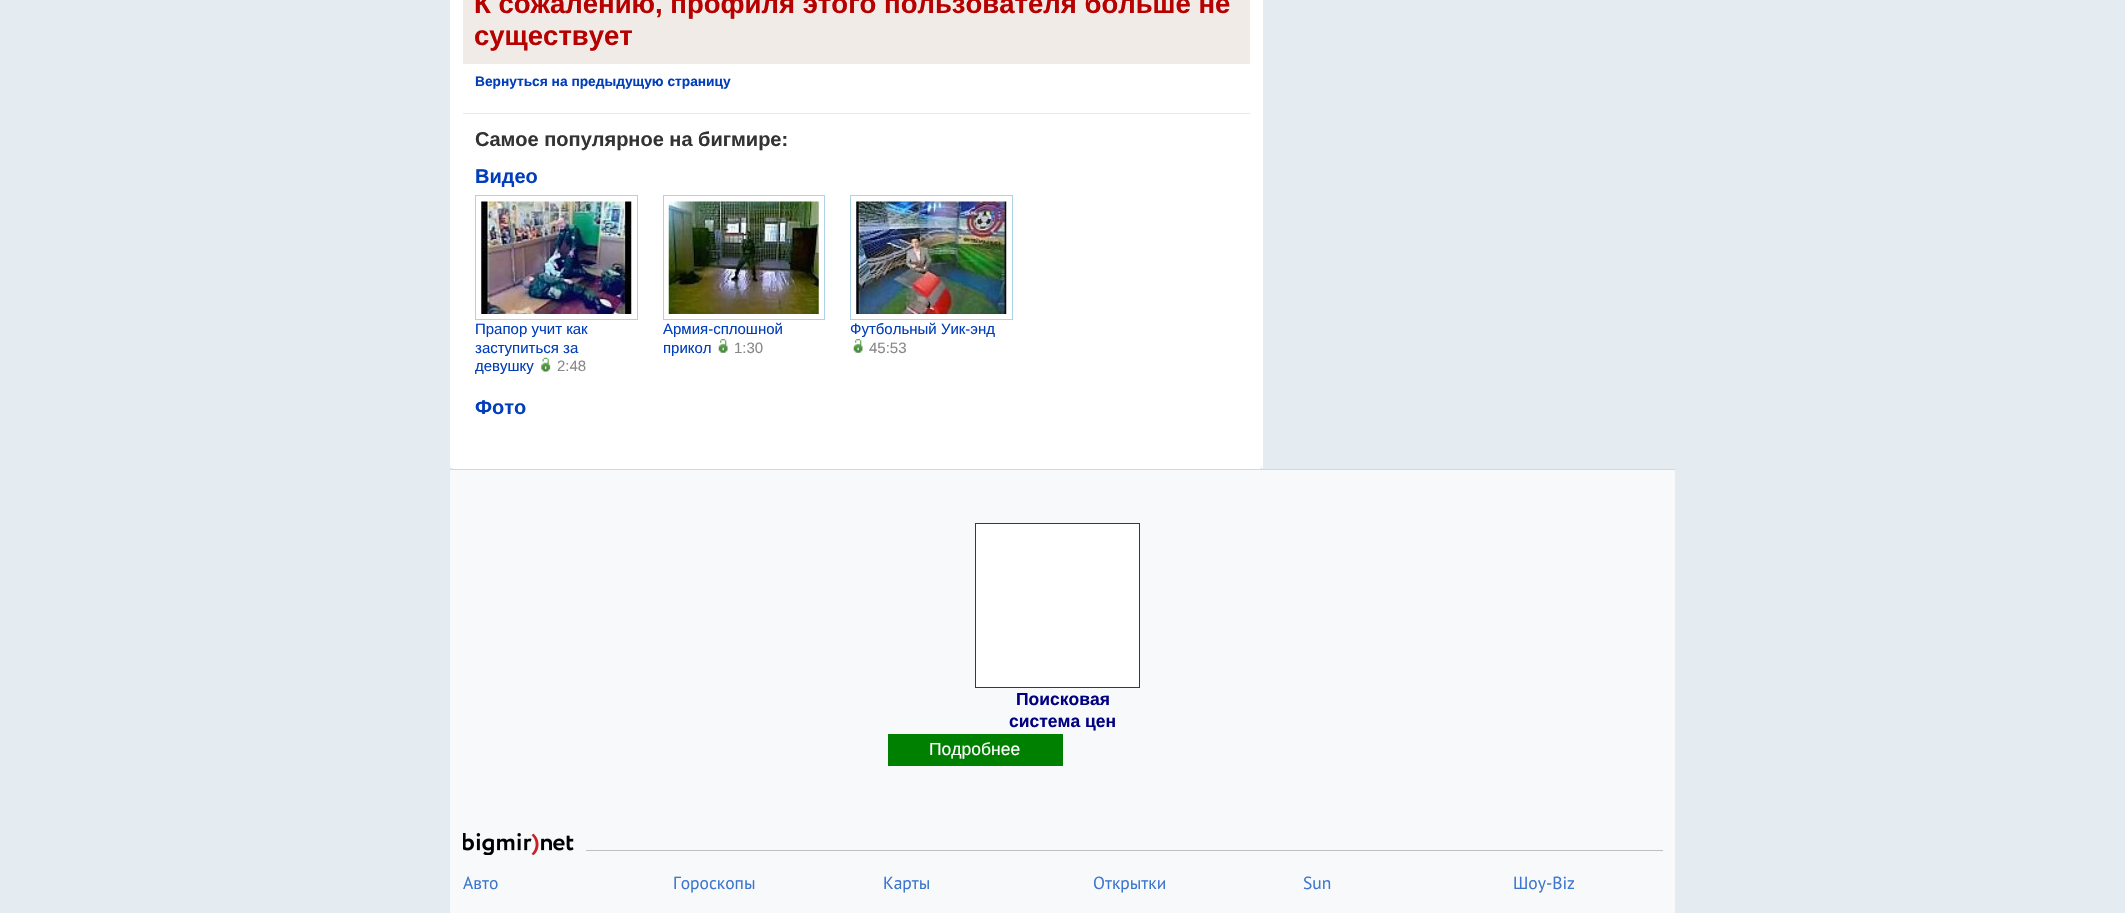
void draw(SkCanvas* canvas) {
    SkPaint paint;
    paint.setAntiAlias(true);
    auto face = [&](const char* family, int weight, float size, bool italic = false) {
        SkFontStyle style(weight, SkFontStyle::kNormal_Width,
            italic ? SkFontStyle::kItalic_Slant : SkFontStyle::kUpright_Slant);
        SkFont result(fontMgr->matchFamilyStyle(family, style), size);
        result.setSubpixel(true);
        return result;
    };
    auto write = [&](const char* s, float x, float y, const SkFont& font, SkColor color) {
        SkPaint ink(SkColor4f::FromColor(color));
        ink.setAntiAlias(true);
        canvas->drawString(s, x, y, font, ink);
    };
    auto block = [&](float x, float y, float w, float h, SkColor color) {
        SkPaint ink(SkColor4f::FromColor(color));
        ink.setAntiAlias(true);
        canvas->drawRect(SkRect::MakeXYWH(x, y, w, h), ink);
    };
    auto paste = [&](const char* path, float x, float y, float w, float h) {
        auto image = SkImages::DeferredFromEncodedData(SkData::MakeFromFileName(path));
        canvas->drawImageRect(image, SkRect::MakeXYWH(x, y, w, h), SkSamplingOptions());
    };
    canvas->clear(SkColorSetRGB(228, 236, 242));
    block(450, 0, 813, 469, SK_ColorWHITE);
    block(463, 0, 787, 64, SkColorSetRGB(241, 235, 231));
    auto kFont1 = face("Liberation Sans", 700, 27.5f);
    write("К сожалению, профиля этого пользователя больше не", 474, 13, kFont1, SkColorSetRGB(183, 0, 0));
    write("существует", 474, 45, kFont1, SkColorSetRGB(183, 0, 0));
    auto kFont2 = face("Liberation Sans", 700, 13.75f);
    write("Вернуться на предыдущую страницу", 475, 86, kFont2, SkColorSetRGB(1, 62, 187));
    block(463, 113, 787, 1, SkColorSetRGB(228, 236, 242));
    auto kFont3 = face("Liberation Sans", 700, 20);
    write("Cамое популярное на бигмире:", 475, 146, kFont3, SkColorSetRGB(51, 51, 51));
    write("Видео", 475, 183, kFont3, SkColorSetRGB(1, 62, 187));
    paint.setStyle(SkPaint::kStroke_Style);
    paint.setStrokeWidth(1);
    paint.setColor(SkColorSetRGB(174, 210, 230));
    canvas->drawRect(SkRect::MakeXYWH(475.5f, 195.5f, 162, 124), paint);
    paste("pic1.png", 481, 201, 151, 113);
    auto kFont4 = face("Liberation Sans", 400, 15);
    write("Прапор учит как", 475, 334, kFont4, SkColorSetRGB(1, 62, 187));
    write("заступиться за", 475, 353, kFont4, SkColorSetRGB(1, 62, 187));
    write("девушку", 475, 371, kFont4, SkColorSetRGB(1, 62, 187));
    paste("pic2.png", 541, 357, 10, 15);
    write("2:48", 557, 371, kFont4, SkColorSetRGB(136, 136, 136));
    canvas->drawRect(SkRect::MakeXYWH(663.5f, 195.5f, 161, 124), paint);
    paste("pic3.png", 668, 201, 151, 113);
    write("Армия-сплошной", 663, 334, kFont4, SkColorSetRGB(1, 62, 187));
    write("прикол", 663, 353, kFont4, SkColorSetRGB(1, 62, 187));
    paste("pic4.png", 718, 339, 10, 14);
    write("1:30", 734, 353, kFont4, SkColorSetRGB(136, 136, 136));
    canvas->drawRect(SkRect::MakeXYWH(850.5f, 195.5f, 162, 124), paint);
    paste("pic5.png", 856, 201, 151, 113);
    write("Футбольный Уик-энд", 850, 334, kFont4, SkColorSetRGB(1, 62, 187));
    paste("pic6.png", 853, 339, 10, 14);
    write("45:53", 869, 353, kFont4, SkColorSetRGB(136, 136, 136));
    write("Фото", 475, 414, kFont3, SkColorSetRGB(1, 62, 187));
    block(1261, 466, 1, 1, SkColorSetRGB(228, 236, 242));
    block(450, 466, 1, 1, SkColorSetRGB(228, 236, 242));
    block(1260, 468, 3, 1, SkColorSetRGB(228, 236, 242));
    block(450, 468, 3, 1, SkColorSetRGB(228, 236, 242));
    block(450, 470, 1225, 443, SkColorSetRGB(247, 249, 250));
    block(450, 469, 1225, 1, SkColorSetRGB(215, 216, 217));
    paint.setStyle(SkPaint::kFill_Style);
    paint.setColor(SK_ColorWHITE);
    canvas->drawRect(SkRect::MakeXYWH(975.5f, 523.5f, 164, 164), paint);
    paint.setStyle(SkPaint::kStroke_Style);
    paint.setColor(SkColorSetRGB(51, 51, 102));
    canvas->drawRect(SkRect::MakeXYWH(975.5f, 523.5f, 164, 164), paint);
    auto kFont5 = face("Liberation Sans", 700, 17.5f);
    write("Поисковая", 1016, 705, kFont5, SkColorSetRGB(0, 0, 128));
    write("система цен", 1009, 727, kFont5, SkColorSetRGB(0, 0, 128));
    block(888, 734, 175, 32, SkColorSetRGB(0, 128, 0));
    auto kFont6 = face("Liberation Sans", 400, 17.5f);
    write("Подробнее", 929, 755, kFont6, SK_ColorWHITE);
    paste("pic7.png", 463, 833, 111, 22);
    block(586, 850, 1077, 1, SkColorSetRGB(191, 191, 192));
    auto kFont7 = face("PT Sans", 400, 17.5f);
    write("Авто", 463, 889, kFont7, SkColorSetRGB(61, 118, 204));
    write("Гороскопы", 673, 889, kFont7, SkColorSetRGB(61, 118, 204));
    write("Карты", 883, 889, kFont7, SkColorSetRGB(61, 118, 204));
    write("Открытки", 1093, 889, kFont7, SkColorSetRGB(61, 118, 204));
    write("Sun", 1303, 889, kFont7, SkColorSetRGB(61, 118, 204));
    write("Шоу-Biz", 1513, 889, kFont7, SkColorSetRGB(61, 118, 204));
}
